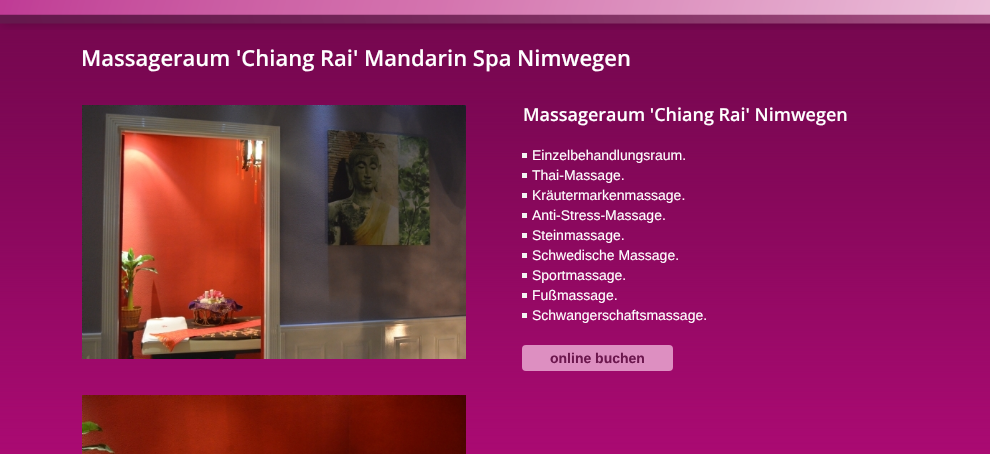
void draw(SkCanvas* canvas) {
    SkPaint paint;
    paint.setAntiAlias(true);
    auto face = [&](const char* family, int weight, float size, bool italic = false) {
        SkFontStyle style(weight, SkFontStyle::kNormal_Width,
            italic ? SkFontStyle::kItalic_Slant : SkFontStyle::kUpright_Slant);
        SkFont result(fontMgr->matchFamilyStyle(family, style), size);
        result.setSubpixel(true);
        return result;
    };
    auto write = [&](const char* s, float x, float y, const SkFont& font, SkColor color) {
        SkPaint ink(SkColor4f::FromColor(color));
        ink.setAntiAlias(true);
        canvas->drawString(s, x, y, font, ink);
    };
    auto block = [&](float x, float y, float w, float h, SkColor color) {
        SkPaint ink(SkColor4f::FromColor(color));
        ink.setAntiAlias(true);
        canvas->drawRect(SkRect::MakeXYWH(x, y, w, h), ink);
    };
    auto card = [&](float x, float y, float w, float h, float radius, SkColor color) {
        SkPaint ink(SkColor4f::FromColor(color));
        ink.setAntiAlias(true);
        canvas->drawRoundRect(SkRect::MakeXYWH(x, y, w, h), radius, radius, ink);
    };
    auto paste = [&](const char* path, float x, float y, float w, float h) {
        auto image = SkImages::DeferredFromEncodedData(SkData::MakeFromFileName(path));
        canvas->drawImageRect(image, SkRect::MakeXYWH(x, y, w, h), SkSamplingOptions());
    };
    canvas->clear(SK_ColorWHITE);
    paste("pic1.png", 0, 233, 990, 221);
    paste("pic2.png", 0, 23, 990, 210);
    paste("pic3.png", 0, 0, 990, 30);
    auto kFont1 = face("Open Sans", 600, 22);
    write("Massageraum 'Chiang Rai' Mandarin Spa Nimwegen", 81, 66, kFont1, SK_ColorWHITE);
    paste("pic4.png", 82, 105, 384, 254);
    auto kFont2 = face("Open Sans", 600, 18);
    write("Massageraum 'Chiang Rai' Nimwegen", 523, 121, kFont2, SK_ColorWHITE);
    block(522, 153, 5, 5, SkColorSetRGB(244, 244, 244));
    auto kFont3 = face("Liberation Sans", 400, 14);
    write("Einzelbehandlungsraum.", 532, 160, kFont3, SK_ColorWHITE);
    block(522, 173, 5, 5, SkColorSetRGB(244, 244, 244));
    write("Thai-Massage.", 532, 180, kFont3, SK_ColorWHITE);
    block(522, 193, 5, 5, SkColorSetRGB(244, 244, 244));
    write("Kräutermarkenmassage.", 532, 200, kFont3, SK_ColorWHITE);
    block(522, 213, 5, 5, SkColorSetRGB(244, 244, 244));
    write("Anti-Stress-Massage.", 532, 220, kFont3, SK_ColorWHITE);
    block(522, 233, 5, 5, SkColorSetRGB(244, 244, 244));
    write("Steinmassage.", 532, 240, kFont3, SK_ColorWHITE);
    block(522, 253, 5, 5, SkColorSetRGB(244, 244, 244));
    write("Schwedische Massage.", 532, 260, kFont3, SK_ColorWHITE);
    block(522, 273, 5, 5, SkColorSetRGB(244, 244, 244));
    write("Sportmassage.", 532, 280, kFont3, SK_ColorWHITE);
    block(522, 293, 5, 5, SkColorSetRGB(244, 244, 244));
    write("Fußmassage.", 532, 300, kFont3, SK_ColorWHITE);
    block(522, 313, 5, 5, SkColorSetRGB(244, 244, 244));
    write("Schwangerschaftsmassage.", 532, 320, kFont3, SK_ColorWHITE);
    card(522, 345, 151, 26, 4, SkColorSetRGB(221, 143, 193));
    auto kFont4 = face("Liberation Sans", 700, 14);
    write("online buchen", 550, 363, kFont4, SkColorSetRGB(108, 23, 78));
    paste("pic5.png", 82, 395, 384, 59);
}
